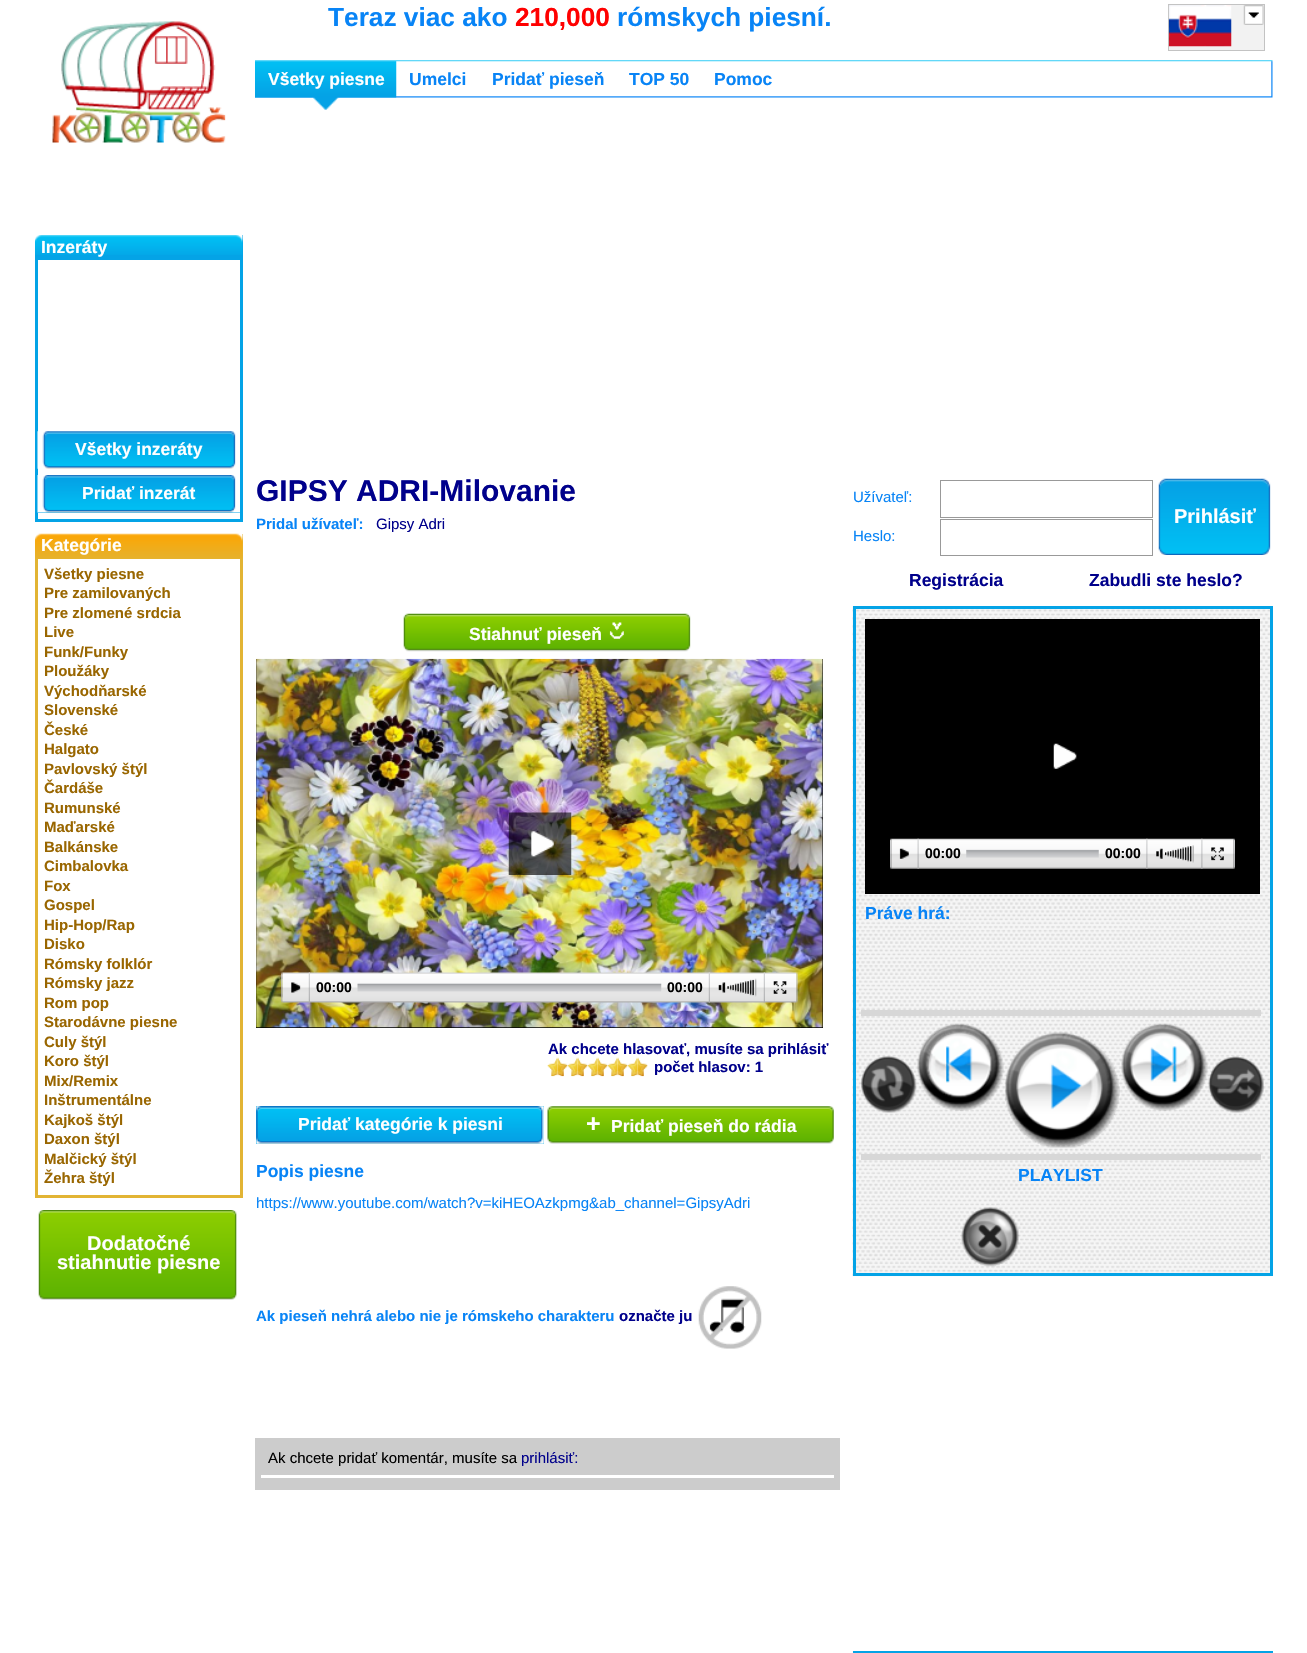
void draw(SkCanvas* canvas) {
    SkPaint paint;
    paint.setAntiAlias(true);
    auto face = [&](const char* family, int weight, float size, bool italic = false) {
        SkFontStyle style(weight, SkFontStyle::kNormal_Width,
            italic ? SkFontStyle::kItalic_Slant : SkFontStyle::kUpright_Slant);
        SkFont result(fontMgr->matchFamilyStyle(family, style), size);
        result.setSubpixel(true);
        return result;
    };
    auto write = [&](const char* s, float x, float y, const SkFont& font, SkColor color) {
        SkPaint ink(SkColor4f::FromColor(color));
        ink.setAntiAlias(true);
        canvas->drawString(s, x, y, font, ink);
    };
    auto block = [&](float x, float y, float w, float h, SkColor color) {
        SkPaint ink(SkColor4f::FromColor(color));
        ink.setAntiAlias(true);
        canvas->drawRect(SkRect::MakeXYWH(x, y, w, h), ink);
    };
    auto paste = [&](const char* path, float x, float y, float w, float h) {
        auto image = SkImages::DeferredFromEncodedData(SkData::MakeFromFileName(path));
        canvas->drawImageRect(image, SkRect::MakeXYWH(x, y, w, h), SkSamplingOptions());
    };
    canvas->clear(SK_ColorWHITE);
    paste("pic1.png", 52, 21, 174, 122);
    block(35, 235, 208, 25, SkColorSetRGB(4, 163, 230));
    paste("pic2.png", 35, 235, 208, 20);
    auto kFont1 = face("Liberation Sans", 700, 17.5f);
    write("Inzeráty", 41, 253, kFont1, SK_ColorWHITE);
    block(240, 260, 3, 261, SkColorSetRGB(4, 163, 230));
    block(35, 519, 208, 3, SkColorSetRGB(4, 163, 230));
    block(35, 260, 3, 261, SkColorSetRGB(4, 163, 230));
    paste("pic3.png", 37, 431, 203, 38);
    write("Všetky inzeráty", 75, 455, kFont1, SK_ColorWHITE);
    block(38, 512, 202, 1, SkColorSetRGB(4, 163, 230));
    paste("pic4.png", 37, 475, 203, 38);
    write("Pridať inzerát", 82, 499, kFont1, SK_ColorWHITE);
    block(35, 534, 208, 25, SkColorSetRGB(226, 180, 52));
    paste("pic5.png", 35, 533, 208, 26);
    write("Kategórie", 41, 551, kFont1, SK_ColorWHITE);
    block(240, 559, 3, 639, SkColorSetRGB(226, 180, 52));
    block(35, 1195, 208, 3, SkColorSetRGB(226, 180, 52));
    block(35, 559, 3, 639, SkColorSetRGB(226, 180, 52));
    auto kFont2 = face("Liberation Sans", 700, 15);
    write("Všetky piesne", 44, 579, kFont2, SkColorSetRGB(153, 102, 0));
    write("Pre zamilovaných", 44, 598, kFont2, SkColorSetRGB(153, 102, 0));
    write("Pre zlomené srdcia", 44, 618, kFont2, SkColorSetRGB(153, 102, 0));
    write("Live", 44, 637, kFont2, SkColorSetRGB(153, 102, 0));
    write("Funk/Funky", 44, 657, kFont2, SkColorSetRGB(153, 102, 0));
    write("Ploužáky", 44, 676, kFont2, SkColorSetRGB(153, 102, 0));
    write("Východňarské", 44, 696, kFont2, SkColorSetRGB(153, 102, 0));
    write("Slovenské", 44, 715, kFont2, SkColorSetRGB(153, 102, 0));
    write("České", 44, 735, kFont2, SkColorSetRGB(153, 102, 0));
    write("Halgato", 44, 754, kFont2, SkColorSetRGB(153, 102, 0));
    write("Pavlovský štýl", 44, 774, kFont2, SkColorSetRGB(153, 102, 0));
    write("Čardáše", 44, 793, kFont2, SkColorSetRGB(153, 102, 0));
    write("Rumunské", 44, 813, kFont2, SkColorSetRGB(153, 102, 0));
    write("Maďarské", 44, 832, kFont2, SkColorSetRGB(153, 102, 0));
    write("Balkánske", 44, 852, kFont2, SkColorSetRGB(153, 102, 0));
    write("Cimbalovka", 44, 871, kFont2, SkColorSetRGB(153, 102, 0));
    write("Fox", 44, 891, kFont2, SkColorSetRGB(153, 102, 0));
    write("Gospel", 44, 910, kFont2, SkColorSetRGB(153, 102, 0));
    write("Hip-Hop/Rap", 44, 930, kFont2, SkColorSetRGB(153, 102, 0));
    write("Disko", 44, 949, kFont2, SkColorSetRGB(153, 102, 0));
    write("Rómsky folklór", 44, 969, kFont2, SkColorSetRGB(153, 102, 0));
    write("Rómsky jazz", 44, 988, kFont2, SkColorSetRGB(153, 102, 0));
    write("Rom pop", 44, 1008, kFont2, SkColorSetRGB(153, 102, 0));
    write("Starodávne piesne", 44, 1027, kFont2, SkColorSetRGB(153, 102, 0));
    write("Culy štýl", 44, 1047, kFont2, SkColorSetRGB(153, 102, 0));
    write("Koro štýl", 44, 1066, kFont2, SkColorSetRGB(153, 102, 0));
    write("Mix/Remix", 44, 1086, kFont2, SkColorSetRGB(153, 102, 0));
    write("Inštrumentálne", 44, 1105, kFont2, SkColorSetRGB(153, 102, 0));
    write("Kajkoš štýl", 44, 1125, kFont2, SkColorSetRGB(153, 102, 0));
    write("Daxon štýl", 44, 1144, kFont2, SkColorSetRGB(153, 102, 0));
    write("Malčický štýl", 44, 1164, kFont2, SkColorSetRGB(153, 102, 0));
    write("Žehra štýl", 44, 1183, kFont2, SkColorSetRGB(153, 102, 0));
    paste("pic6.png", 38, 1210, 199, 90);
    auto kFont3 = face("Liberation Sans", 700, 20);
    write("Dodatočné", 87, 1250, kFont3, SK_ColorWHITE);
    write("stiahnutie piesne", 57, 1269, kFont3, SK_ColorWHITE);
    auto kFont4 = face("Liberation Sans", 700, 26.25f);
    write("Teraz viac ako", 328, 26, kFont4, SkColorSetRGB(8, 132, 246));
    write("210,000", 515, 26, kFont4, SkColorSetRGB(255, 0, 0));
    write("rómskych piesní.", 617, 26, kFont4, SkColorSetRGB(8, 132, 246));
    paint.setColor(SkColorSetRGB(242, 242, 242));
    canvas->drawRect(SkRect::MakeXYWH(1168.5f, 4.5f, 96, 46), paint);
    paint.setStyle(SkPaint::kStroke_Style);
    paint.setStrokeWidth(1);
    paint.setColor(SkColorSetRGB(195, 195, 195));
    canvas->drawRect(SkRect::MakeXYWH(1168.5f, 4.5f, 96, 46), paint);
    paste("pic7.png", 1168, 5, 64, 42);
    paste("pic8.png", 1243, 5, 21, 20);
    paste("pic9.png", 255, 60, 1018, 38);
    paste("pic10.png", 255, 61, 142, 49);
    write("Všetky piesne", 268, 85, kFont1, SK_ColorWHITE);
    write("Umelci", 409, 85, kFont1, SkColorSetRGB(8, 132, 246));
    write("Pridať pieseň", 492, 85, kFont1, SkColorSetRGB(8, 132, 246));
    write("TOP 50", 629, 85, kFont1, SkColorSetRGB(8, 132, 246));
    write("Pomoc", 714, 85, kFont1, SkColorSetRGB(8, 132, 246));
    auto kFont5 = face("Liberation Sans", 700, 30);
    write("GIPSY ADRI-Milovanie", 256, 501, kFont5, SkColorSetRGB(0, 0, 139));
    write("Pridal užívateľ:", 256, 529, kFont2, SkColorSetRGB(8, 132, 246));
    auto kFont6 = face("Liberation Sans", 400, 15);
    write("Gipsy Adri", 376, 529, kFont6, SkColorSetRGB(0, 0, 139));
    paste("pic11.png", 403, 613, 288, 39);
    write("Stiahnuť pieseň", 469, 640, kFont1, SK_ColorWHITE);
    paste("pic12.png", 609, 622, 15, 17);
    block(256, 659, 567, 369, SK_ColorBLACK);
    paste("pic13.png", 256, 658, 567, 370);
    paste("pic14.png", 508, 812, 64, 63);
    paste("pic15.png", 531, 831, 23, 26);
    paste("pic16.png", 281, 972, 2, 31);
    paste("pic17.png", 282, 972, 515, 31);
    paste("pic18.png", 291, 982, 10, 11);
    paste("pic19.png", 308, 972, 2, 31);
    auto kFont7 = face("Liberation Sans", 700, 14);
    write("00:00", 316, 992, kFont7, SK_ColorBLACK);
    paste("pic20.png", 357, 983, 305, 9);
    write("00:00", 667, 992, kFont7, SK_ColorBLACK);
    paste("pic21.png", 708, 972, 2, 31);
    paste("pic22.png", 718, 982, 8, 11);
    paste("pic23.png", 727, 978, 30, 19);
    paste("pic24.png", 727, 979, 27, 17);
    paste("pic25.png", 763, 972, 2, 31);
    paste("pic26.png", 773, 981, 14, 13);
    paste("pic27.png", 796, 972, 2, 31);
    write("Ak chcete hlasovať, musíte sa prihlásiť", 548, 1054, kFont2, SkColorSetRGB(0, 0, 139));
    paste("pic28.png", 547, 1057, 11, 20);
    paste("pic29.png", 557, 1057, 11, 20);
    paste("pic30.png", 567, 1057, 11, 20);
    paste("pic31.png", 577, 1057, 11, 20);
    paste("pic32.png", 587, 1057, 11, 20);
    paste("pic33.png", 597, 1057, 11, 20);
    paste("pic34.png", 607, 1057, 11, 20);
    paste("pic29.png", 617, 1057, 11, 20);
    paste("pic34.png", 627, 1057, 11, 20);
    paste("pic29.png", 637, 1057, 11, 20);
    write("počet hlasov: 1", 654, 1072, kFont2, SkColorSetRGB(0, 0, 139));
    block(256, 1106, 288, 38, SkColorSetRGB(4, 163, 230));
    paste("pic35.png", 256, 1106, 288, 38);
    write("Pridať kategórie k piesni", 298, 1130, kFont1, SK_ColorWHITE);
    paste("pic36.png", 547, 1106, 288, 38);
    auto kFont8 = face("Liberation Sans", 700, 25);
    write("+", 586, 1132, kFont8, SK_ColorWHITE);
    write("Pridať pieseň do rádia", 611, 1132, kFont1, SK_ColorWHITE);
    write("Popis piesne", 256, 1177, kFont1, SkColorSetRGB(8, 132, 246));
    write("https://www.youtube.com/watch?v=kiHEOAzkpmg&ab_channel=GipsyAdri", 256, 1208, kFont6, SkColorSetRGB(8, 132, 246));
    write("Ak pieseň nehrá alebo nie je rómskeho charakteru", 256, 1321, kFont2, SkColorSetRGB(8, 132, 246));
    write("označte ju", 619, 1321, kFont2, SkColorSetRGB(0, 0, 139));
    paste("pic37.png", 698, 1286, 64, 63);
    block(255, 1438, 585, 52, SkColorSetRGB(204, 204, 204));
    block(261, 1475, 573, 3, SK_ColorWHITE);
    write("Ak chcete pridať komentár, musíte sa", 268, 1463, kFont6, SK_ColorBLACK);
    write("prihlásiť:", 521, 1463, kFont6, SkColorSetRGB(0, 0, 139));
    write("Užívateľ:", 853, 502, kFont6, SkColorSetRGB(8, 132, 246));
    paint.setColor(SkColorSetRGB(153, 153, 153));
    canvas->drawRect(SkRect::MakeXYWH(940.5f, 480.5f, 212, 37), paint);
    write("Heslo:", 853, 541, kFont6, SkColorSetRGB(8, 132, 246));
    canvas->drawRect(SkRect::MakeXYWH(940.5f, 519.5f, 212, 36), paint);
    paste("pic38.png", 1158, 478, 113, 77);
    write("Prihlásiť", 1174, 523, kFont3, SK_ColorWHITE);
    write("Registrácia", 909, 586, kFont1, SkColorSetRGB(0, 0, 139));
    write("Zabudli ste heslo?", 1089, 586, kFont1, SkColorSetRGB(0, 0, 139));
    paste("pic39.png", 852, 606, 421, 671);
    paint.setStrokeWidth(3);
    paint.setColor(SkColorSetRGB(4, 163, 230));
    canvas->drawRect(SkRect::MakeXYWH(854.5f, 607.5f, 417, 667), paint);
    block(865, 619, 395, 275, SK_ColorBLACK);
    paste("pic40.png", 1053, 743, 24, 26);
    paste("pic41.png", 890, 838, 2, 31);
    paste("pic42.png", 891, 838, 343, 31);
    paste("pic43.png", 899, 848, 10, 11);
    paste("pic44.png", 917, 838, 2, 31);
    write("00:00", 925, 858, kFont7, SK_ColorBLACK);
    paste("pic45.png", 966, 849, 133, 9);
    write("00:00", 1105, 858, kFont7, SK_ColorBLACK);
    paste("pic46.png", 1146, 838, 2, 31);
    paste("pic47.png", 1156, 848, 7, 11);
    paste("pic48.png", 1165, 845, 29, 18);
    paste("pic49.png", 1165, 846, 27, 16);
    paste("pic46.png", 1201, 838, 2, 31);
    paste("pic50.png", 1211, 847, 13, 14);
    paste("pic51.png", 1233, 838, 2, 31);
    write("Práve hrá:", 865, 919, kFont1, SkColorSetRGB(8, 132, 246));
    block(861, 1010, 400, 6, SkColorSetRGB(215, 215, 215));
    paste("pic52.png", 861, 1056, 56, 57);
    paste("pic53.png", 917, 1023, 87, 88);
    paste("pic54.png", 1005, 1032, 115, 116);
    paste("pic55.png", 1121, 1023, 87, 88);
    paste("pic56.png", 1208, 1056, 56, 57);
    block(861, 1154, 400, 6, SkColorSetRGB(215, 215, 215));
    write("PLAYLIST", 1018, 1181, kFont1, SkColorSetRGB(8, 132, 246));
    paste("pic57.png", 961, 1207, 58, 60);
    paste("pic58.png", 852, 1651, 1, 2);
    canvas->drawRect(SkRect::MakeXYWH(854.5f, 1652.5f, 417, 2), paint);
}
